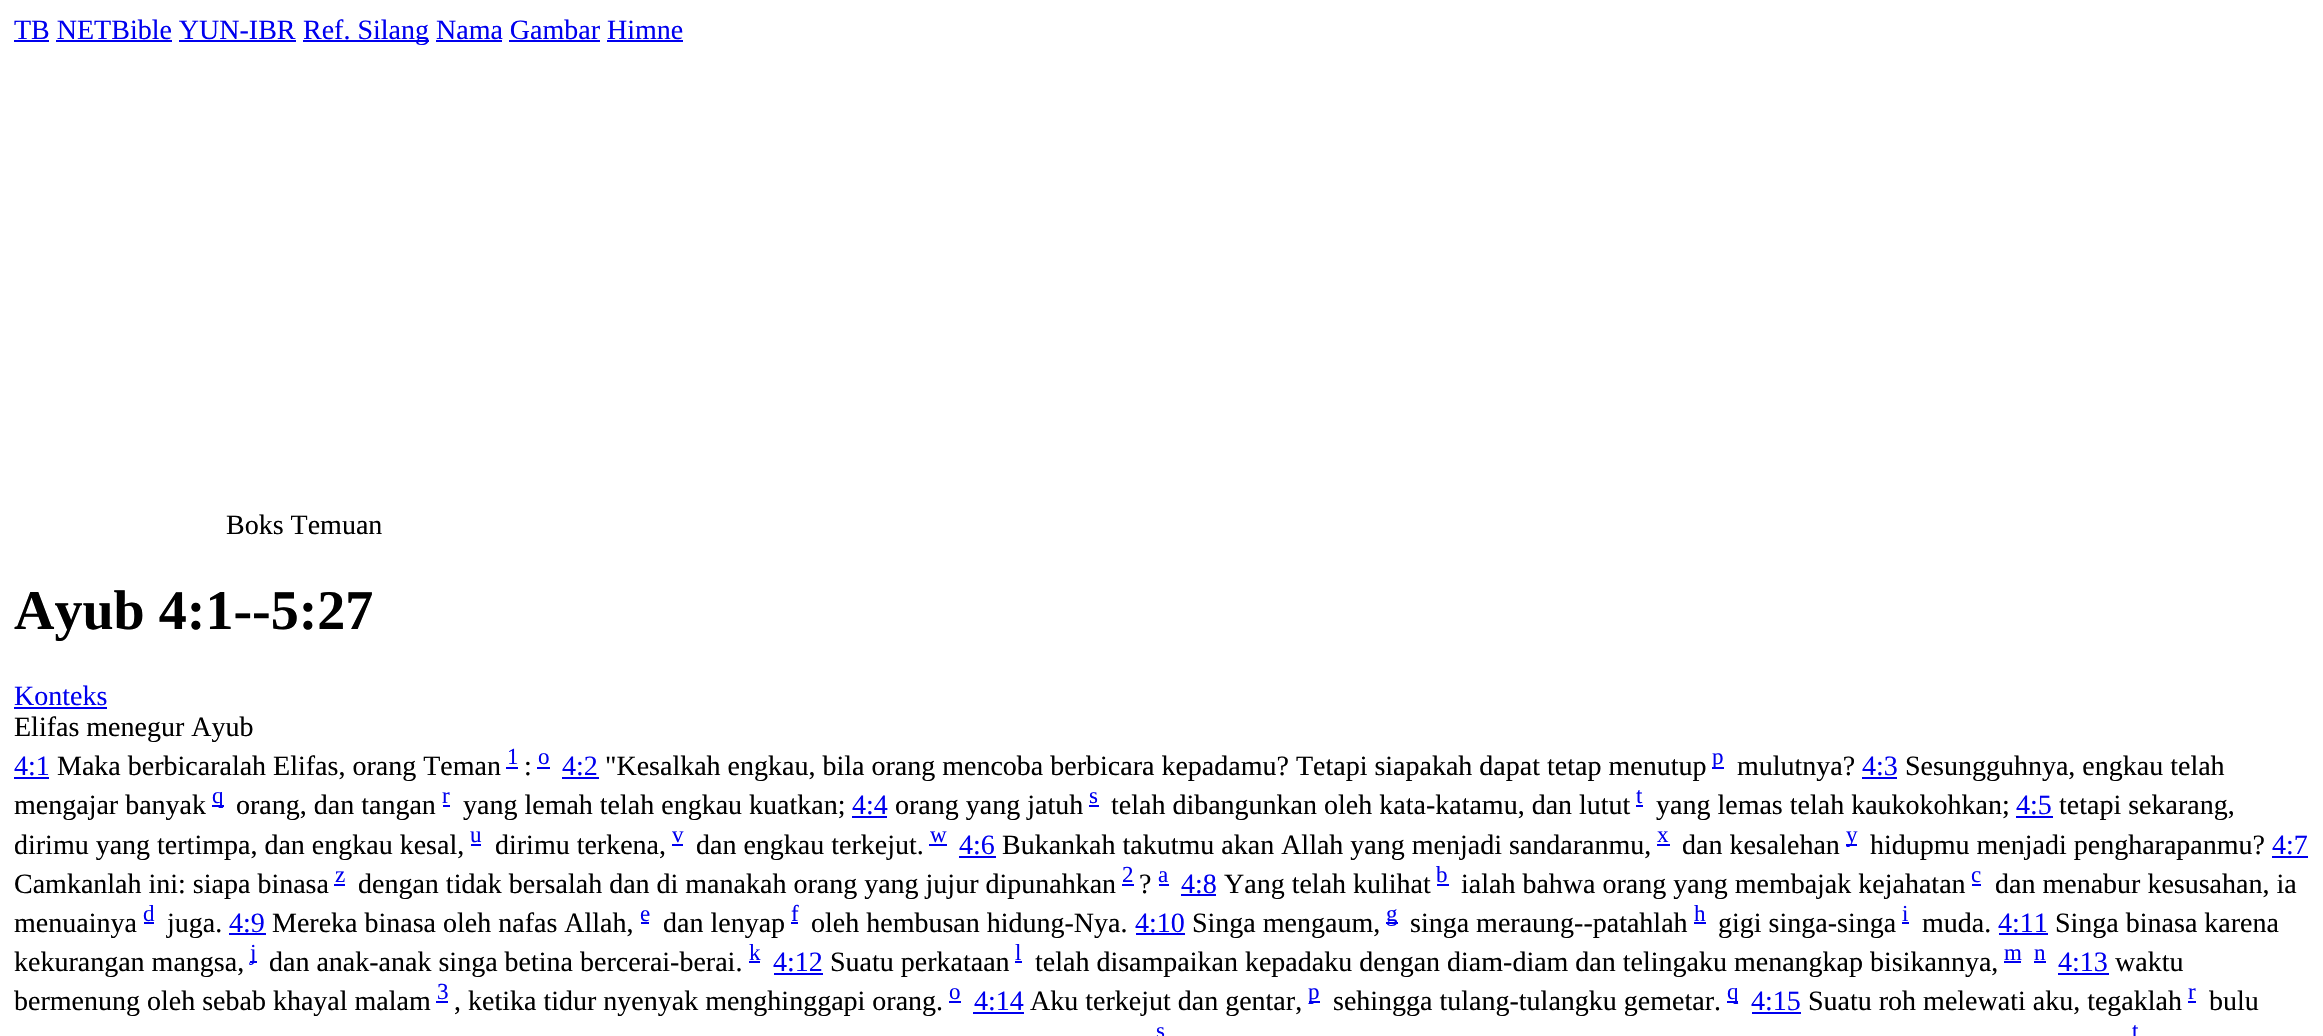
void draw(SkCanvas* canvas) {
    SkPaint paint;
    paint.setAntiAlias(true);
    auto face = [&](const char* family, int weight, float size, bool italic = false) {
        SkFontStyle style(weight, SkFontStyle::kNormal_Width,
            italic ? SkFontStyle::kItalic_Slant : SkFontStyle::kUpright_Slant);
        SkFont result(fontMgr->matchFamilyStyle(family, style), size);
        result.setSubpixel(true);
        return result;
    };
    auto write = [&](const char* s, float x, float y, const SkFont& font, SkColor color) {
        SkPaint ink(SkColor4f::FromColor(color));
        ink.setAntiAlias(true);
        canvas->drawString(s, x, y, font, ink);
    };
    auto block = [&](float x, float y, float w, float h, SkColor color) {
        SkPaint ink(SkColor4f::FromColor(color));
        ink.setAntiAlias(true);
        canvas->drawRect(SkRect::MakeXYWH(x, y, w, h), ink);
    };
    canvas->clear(SK_ColorWHITE);
    auto kFont1 = face("Liberation Serif", 400, 28);
    write("TB NETBible YUN-IBR", 14, 39, kFont1, SkColorSetRGB(0, 0, 238));
    block(14, 40, 35, 2, SkColorSetRGB(0, 0, 238));
    block(303, 40, 126, 2, SkColorSetRGB(0, 0, 238));
    write("Ref. Silang Nama Gambar Himne", 303, 39, kFont1, SkColorSetRGB(0, 0, 238));
    block(56, 40, 116, 2, SkColorSetRGB(0, 0, 238));
    block(179, 40, 117, 2, SkColorSetRGB(0, 0, 238));
    block(436, 40, 66, 2, SkColorSetRGB(0, 0, 238));
    block(509, 40, 91, 2, SkColorSetRGB(0, 0, 238));
    block(607, 40, 76, 2, SkColorSetRGB(0, 0, 238));
    write("Boks Temuan", 226, 534, kFont1, SK_ColorBLACK);
    auto kFont2 = face("Liberation Serif", 700, 56);
    write("Ayub 4:1--5:27", 14, 629, kFont2, SK_ColorBLACK);
    write("Konteks", 14, 705, kFont1, SkColorSetRGB(0, 0, 238));
    block(14, 707, 93, 2, SkColorSetRGB(0, 0, 238));
    write("Elifas menegur Ayub", 14, 736, kFont1, SK_ColorBLACK);
    write("4:1", 14, 775, kFont1, SkColorSetRGB(0, 0, 238));
    block(14, 777, 35, 2, SkColorSetRGB(0, 0, 238));
    write("Maka berbicaralah Elifas, orang Teman", 57, 775, kFont1, SK_ColorBLACK);
    auto kFont3 = face("Liberation Serif", 400, 23);
    write("1", 507, 764, kFont3, SkColorSetRGB(0, 0, 238));
    block(506, 767, 12, 2, SkColorSetRGB(0, 0, 238));
    write(":", 524, 775, kFont1, SK_ColorBLACK);
    write("o", 538, 764, kFont3, SkColorSetRGB(0, 0, 238));
    block(537, 767, 13, 2, SkColorSetRGB(0, 0, 238));
    write("4:2", 562, 775, kFont1, SkColorSetRGB(0, 0, 238));
    block(562, 777, 37, 2, SkColorSetRGB(0, 0, 238));
    write("\"Kesalkah engkau, bila orang mencoba berbicara kepadamu? Tetapi siapakah dapat tetap menutup", 605, 775, kFont1, SK_ColorBLACK);
    block(1712, 767, 12, 2, SkColorSetRGB(0, 0, 238));
    write("p", 1712, 764, kFont3, SkColorSetRGB(0, 0, 238));
    write("mulutnya?", 1737, 775, kFont1, SK_ColorBLACK);
    write("4:3", 1862, 775, kFont1, SkColorSetRGB(0, 0, 238));
    block(1862, 777, 35, 2, SkColorSetRGB(0, 0, 238));
    write("Sesungguhnya, engkau telah", 1905, 775, kFont1, SK_ColorBLACK);
    write("mengajar banyak", 14, 814, kFont1, SK_ColorBLACK);
    block(212, 805, 12, 2, SkColorSetRGB(0, 0, 238));
    write("q", 212, 803, kFont3, SkColorSetRGB(0, 0, 238));
    write("orang, dan tangan", 236, 814, kFont1, SK_ColorBLACK);
    write("r", 442, 803, kFont3, SkColorSetRGB(0, 0, 238));
    block(443, 805, 7, 2, SkColorSetRGB(0, 0, 238));
    write("yang lemah telah engkau kuatkan;", 463, 814, kFont1, SK_ColorBLACK);
    write("4:4", 852, 814, kFont1, SkColorSetRGB(0, 0, 238));
    block(852, 816, 35, 2, SkColorSetRGB(0, 0, 238));
    write("orang yang jatuh", 895, 814, kFont1, SK_ColorBLACK);
    write("s", 1089, 803, kFont3, SkColorSetRGB(0, 0, 238));
    block(1089, 805, 10, 2, SkColorSetRGB(0, 0, 238));
    write("telah dibangunkan oleh kata-katamu, dan lutut", 1111, 814, kFont1, SK_ColorBLACK);
    write("t", 1636, 803, kFont3, SkColorSetRGB(0, 0, 238));
    block(1636, 805, 7, 2, SkColorSetRGB(0, 0, 238));
    write("yang lemas telah kaukokohkan;", 1656, 814, kFont1, SK_ColorBLACK);
    write("4:5", 2016, 814, kFont1, SkColorSetRGB(0, 0, 238));
    block(2016, 816, 37, 2, SkColorSetRGB(0, 0, 238));
    write("tetapi sekarang,", 2059, 814, kFont1, SK_ColorBLACK);
    write("dirimu yang tertimpa, dan engkau kesal,", 14, 854, kFont1, SK_ColorBLACK);
    write("u", 470, 842, kFont3, SkColorSetRGB(0, 0, 238));
    block(471, 844, 10, 2, SkColorSetRGB(0, 0, 238));
    write("dirimu terkena,", 495, 854, kFont1, SK_ColorBLACK);
    write("v", 672, 842, kFont3, SkColorSetRGB(0, 0, 238));
    block(672, 844, 11, 2, SkColorSetRGB(0, 0, 238));
    write("dan engkau terkejut.", 696, 854, kFont1, SK_ColorBLACK);
    write("w", 930, 842, kFont3, SkColorSetRGB(0, 0, 238));
    block(929, 844, 18, 2, SkColorSetRGB(0, 0, 238));
    write("4:6", 959, 854, kFont1, SkColorSetRGB(0, 0, 238));
    block(959, 856, 37, 2, SkColorSetRGB(0, 0, 238));
    write("Bukankah takutmu akan Allah yang menjadi sandaranmu,", 1002, 854, kFont1, SK_ColorBLACK);
    write("x", 1657, 842, kFont3, SkColorSetRGB(0, 0, 238));
    block(1657, 844, 13, 2, SkColorSetRGB(0, 0, 238));
    write("dan kesalehan", 1682, 854, kFont1, SK_ColorBLACK);
    block(1846, 844, 11, 2, SkColorSetRGB(0, 0, 238));
    write("y", 1846, 842, kFont3, SkColorSetRGB(0, 0, 238));
    write("hidupmu menjadi pengharapanmu?", 1870, 854, kFont1, SK_ColorBLACK);
    write("4:7", 2272, 854, kFont1, SkColorSetRGB(0, 0, 238));
    block(2272, 856, 36, 2, SkColorSetRGB(0, 0, 238));
    write("Camkanlah ini: siapa binasa", 14, 893, kFont1, SK_ColorBLACK);
    write("z", 335, 882, kFont3, SkColorSetRGB(0, 0, 238));
    block(334, 884, 11, 2, SkColorSetRGB(0, 0, 238));
    write("dengan tidak bersalah dan di manakah orang yang jujur dipunahkan", 358, 893, kFont1, SK_ColorBLACK);
    write("2", 1122, 882, kFont3, SkColorSetRGB(0, 0, 238));
    block(1122, 884, 12, 2, SkColorSetRGB(0, 0, 238));
    write("?", 1139, 893, kFont1, SK_ColorBLACK);
    write("a", 1158, 882, kFont3, SkColorSetRGB(0, 0, 238));
    block(1159, 884, 10, 2, SkColorSetRGB(0, 0, 238));
    write("4:8", 1181, 893, kFont1, SkColorSetRGB(0, 0, 238));
    block(1181, 894, 35, 2, SkColorSetRGB(0, 0, 238));
    write("Yang telah kulihat", 1224, 893, kFont1, SK_ColorBLACK);
    write("b", 1436, 882, kFont3, SkColorSetRGB(0, 0, 238));
    block(1437, 884, 12, 2, SkColorSetRGB(0, 0, 238));
    write("ialah bahwa orang yang membajak kejahatan", 1461, 893, kFont1, SK_ColorBLACK);
    write("c", 1971, 882, kFont3, SkColorSetRGB(0, 0, 238));
    block(1972, 884, 9, 2, SkColorSetRGB(0, 0, 238));
    write("dan menabur kesusahan, ia", 1995, 893, kFont1, SK_ColorBLACK);
    write("menuainya", 14, 932, kFont1, SK_ColorBLACK);
    write("d", 143, 921, kFont3, SkColorSetRGB(0, 0, 238));
    block(144, 922, 10, 2, SkColorSetRGB(0, 0, 238));
    write("juga.", 167, 932, kFont1, SK_ColorBLACK);
    write("4:9", 229, 932, kFont1, SkColorSetRGB(0, 0, 238));
    block(229, 933, 37, 2, SkColorSetRGB(0, 0, 238));
    write("Mereka binasa oleh nafas Allah,", 272, 932, kFont1, SK_ColorBLACK);
    write("e", 640, 921, kFont3, SkColorSetRGB(0, 0, 238));
    block(641, 922, 8, 2, SkColorSetRGB(0, 0, 238));
    write("dan lenyap", 663, 932, kFont1, SK_ColorBLACK);
    write("f", 791, 921, kFont3, SkColorSetRGB(0, 0, 238));
    block(791, 922, 7, 2, SkColorSetRGB(0, 0, 238));
    write("oleh hembusan hidung-Nya.", 811, 932, kFont1, SK_ColorBLACK);
    write("4:10", 1135, 932, kFont1, SkColorSetRGB(0, 0, 238));
    block(1136, 933, 49, 2, SkColorSetRGB(0, 0, 238));
    write("Singa mengaum,", 1192, 932, kFont1, SK_ColorBLACK);
    block(1386, 922, 12, 2, SkColorSetRGB(0, 0, 238));
    write("g", 1386, 921, kFont3, SkColorSetRGB(0, 0, 238));
    write("singa meraung--patahlah", 1410, 932, kFont1, SK_ColorBLACK);
    write("h", 1694, 921, kFont3, SkColorSetRGB(0, 0, 238));
    block(1694, 922, 12, 2, SkColorSetRGB(0, 0, 238));
    write("gigi singa-singa", 1718, 932, kFont1, SK_ColorBLACK);
    write("i", 1902, 921, kFont3, SkColorSetRGB(0, 0, 238));
    block(1902, 922, 7, 2, SkColorSetRGB(0, 0, 238));
    write("muda.", 1922, 932, kFont1, SK_ColorBLACK);
    write("4:11", 1998, 932, kFont1, SkColorSetRGB(0, 0, 238));
    block(1999, 933, 49, 2, SkColorSetRGB(0, 0, 238));
    write("Singa binasa karena", 2055, 932, kFont1, SK_ColorBLACK);
    write("kekurangan mangsa,", 14, 971, kFont1, SK_ColorBLACK);
    block(250, 961, 7, 2, SkColorSetRGB(0, 0, 238));
    write("j", 250, 960, kFont3, SkColorSetRGB(0, 0, 238));
    write("dan anak-anak singa betina bercerai-berai.", 269, 971, kFont1, SK_ColorBLACK);
    write("k", 749, 960, kFont3, SkColorSetRGB(0, 0, 238));
    block(749, 961, 11, 2, SkColorSetRGB(0, 0, 238));
    write("4:12", 773, 971, kFont1, SkColorSetRGB(0, 0, 238));
    block(774, 973, 49, 2, SkColorSetRGB(0, 0, 238));
    write("Suatu perkataan", 830, 971, kFont1, SK_ColorBLACK);
    write("l", 1015, 960, kFont3, SkColorSetRGB(0, 0, 238));
    block(1015, 961, 7, 2, SkColorSetRGB(0, 0, 238));
    write("telah disampaikan kepadaku dengan diam-diam dan telingaku menangkap bisikannya,", 1035, 971, kFont1, SK_ColorBLACK);
    write("m", 2004, 960, kFont3, SkColorSetRGB(0, 0, 238));
    block(2004, 961, 17, 2, SkColorSetRGB(0, 0, 238));
    write("n", 2034, 960, kFont3, SkColorSetRGB(0, 0, 238));
    block(2034, 961, 12, 2, SkColorSetRGB(0, 0, 238));
    write("4:13", 2058, 971, kFont1, SkColorSetRGB(0, 0, 238));
    block(2058, 973, 51, 2, SkColorSetRGB(0, 0, 238));
    write("waktu", 2115, 971, kFont1, SK_ColorBLACK);
    write("bermenung oleh sebab khayal malam", 14, 1010, kFont1, SK_ColorBLACK);
    write("3", 437, 999, kFont3, SkColorSetRGB(0, 0, 238));
    block(436, 1001, 12, 2, SkColorSetRGB(0, 0, 238));
    write(", ketika tidur nyenyak menghinggapi orang.", 454, 1010, kFont1, SK_ColorBLACK);
    write("o", 949, 999, kFont3, SkColorSetRGB(0, 0, 238));
    block(949, 1001, 12, 2, SkColorSetRGB(0, 0, 238));
    write("4:14", 974, 1010, kFont1, SkColorSetRGB(0, 0, 238));
    block(973, 1012, 51, 2, SkColorSetRGB(0, 0, 238));
    write("Aku terkejut dan gentar,", 1030, 1010, kFont1, SK_ColorBLACK);
    block(1309, 1001, 11, 2, SkColorSetRGB(0, 0, 238));
    write("p", 1308, 999, kFont3, SkColorSetRGB(0, 0, 238));
    write("sehingga tulang-tulangku gemetar.", 1333, 1010, kFont1, SK_ColorBLACK);
    block(1727, 1001, 11, 2, SkColorSetRGB(0, 0, 238));
    write("q", 1727, 999, kFont3, SkColorSetRGB(0, 0, 238));
    write("4:15", 1751, 1010, kFont1, SkColorSetRGB(0, 0, 238));
    block(1752, 1012, 49, 2, SkColorSetRGB(0, 0, 238));
    write("Suatu roh melewati aku, tegaklah", 1808, 1010, kFont1, SK_ColorBLACK);
    write("r", 2188, 999, kFont3, SkColorSetRGB(0, 0, 238));
    block(2188, 1001, 8, 2, SkColorSetRGB(0, 0, 238));
    write("bulu", 2209, 1010, kFont1, SK_ColorBLACK);
    write("s", 1156, 1038, kFont3, SkColorSetRGB(0, 0, 238));
    write("t", 2132, 1038, kFont3, SkColorSetRGB(0, 0, 238));
}
